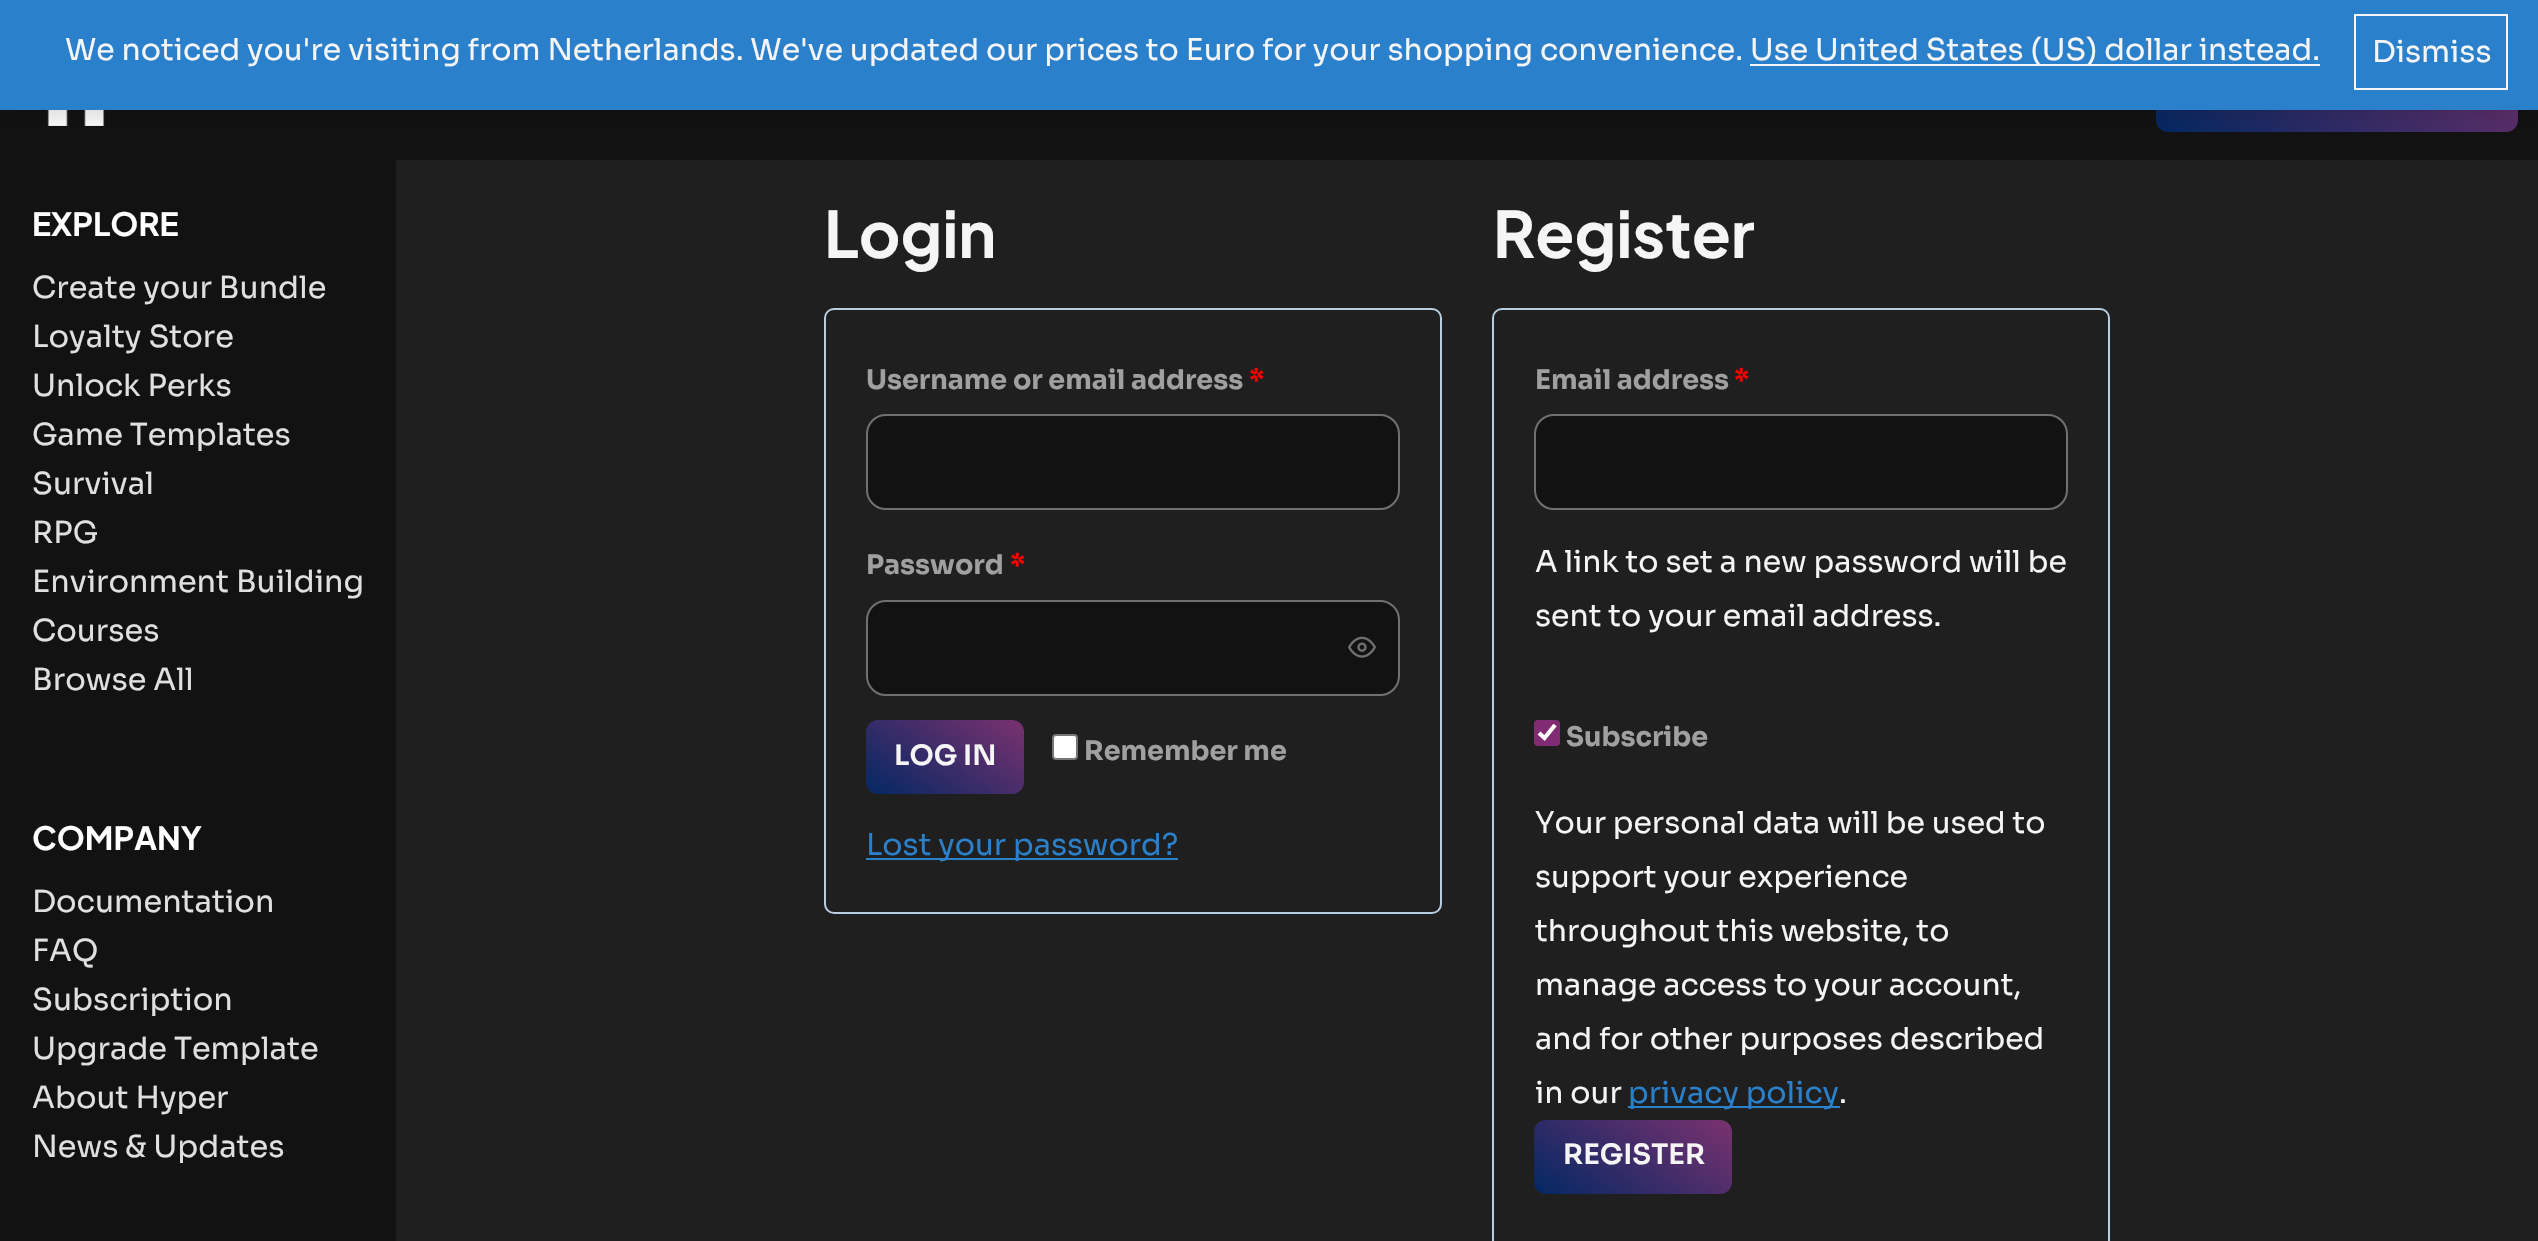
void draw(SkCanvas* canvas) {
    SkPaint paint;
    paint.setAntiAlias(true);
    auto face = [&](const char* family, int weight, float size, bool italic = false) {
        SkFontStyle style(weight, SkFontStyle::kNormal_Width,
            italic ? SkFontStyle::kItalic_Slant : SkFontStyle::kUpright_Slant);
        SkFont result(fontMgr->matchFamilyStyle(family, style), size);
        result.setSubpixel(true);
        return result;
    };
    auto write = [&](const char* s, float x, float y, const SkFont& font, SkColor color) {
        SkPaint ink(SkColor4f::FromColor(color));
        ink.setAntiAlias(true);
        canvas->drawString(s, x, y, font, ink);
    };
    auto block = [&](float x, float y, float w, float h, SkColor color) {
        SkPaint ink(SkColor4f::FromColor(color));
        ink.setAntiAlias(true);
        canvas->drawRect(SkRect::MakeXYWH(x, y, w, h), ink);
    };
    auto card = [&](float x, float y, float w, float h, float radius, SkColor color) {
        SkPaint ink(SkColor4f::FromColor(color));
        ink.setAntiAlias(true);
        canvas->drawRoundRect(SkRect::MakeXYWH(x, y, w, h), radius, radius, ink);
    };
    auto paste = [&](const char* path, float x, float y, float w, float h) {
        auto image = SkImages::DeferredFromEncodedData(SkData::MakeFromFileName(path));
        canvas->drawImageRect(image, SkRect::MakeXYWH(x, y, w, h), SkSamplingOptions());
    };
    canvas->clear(SkColorSetRGB(31, 31, 31));
    block(0, 110, 2538, 50, SkColorSetRGB(18, 18, 18));
    paste("pic1.png", 47, 110, 58, 16);
    {
        const SkColor colors[] = {SkColorSetRGB(3, 40, 99), SkColorSetRGB(122, 49, 111)};
        const float stops[] = {0, 1};
        const SkPoint ends[] = {{2253, 200}, {2421, -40}};
        paint.setShader(SkGradientShader::MakeLinear(ends, colors, stops, 2, SkTileMode::kClamp));
        paint.setAlpha(255);
    }
    canvas->drawRoundRect(SkRect::MakeXYWH(2156, 28, 362, 104), 12, 12, paint);
    paint.setShader(nullptr);
    paint.setColor(SkColorSetARGB(51, 0, 0, 0));
    paint.setMaskFilter(SkMaskFilter::MakeBlur(kNormal_SkBlurStyle, 15));
    canvas->drawRect(SkRect::MakeXYWH(0, -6, 2538, 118), paint);
    paint.setMaskFilter(nullptr);
    block(0, 0, 2538, 110, SkColorSetRGB(42, 128, 202));
    auto kFont1 = face("Sora", 400, 30);
    write("We noticed you're visiting from Netherlands. We've updated our prices to Euro for your shopping convenience.", 65, 60, kFont1, SkColorSetRGB(245, 245, 245));
    block(1750, 64, 570, 2, SkColorSetRGB(245, 245, 245));
    write("Use United States (US) dollar instead.", 1750, 60, kFont1, SkColorSetRGB(245, 245, 245));
    paint.setStyle(SkPaint::kStroke_Style);
    paint.setStrokeWidth(2);
    paint.setColor(SkColorSetRGB(245, 245, 245));
    canvas->drawRect(SkRect::MakeXYWH(2355, 15, 152, 74), paint);
    write("Dismiss", 2372, 62, kFont1, SkColorSetRGB(245, 245, 245));
    block(0, 160, 396, 1081, SkColorSetRGB(18, 18, 18));
    auto kFont2 = face("Plus Jakarta Sans", 700, 32);
    write("EXPLORE", 32, 236, kFont2, SK_ColorWHITE);
    auto kFont3 = face("Sora", 400, 30.4f);
    write("Create your Bundle", 32, 298, kFont3, SkColorSetRGB(224, 224, 224));
    write("Loyalty Store", 32, 347, kFont3, SkColorSetRGB(224, 224, 224));
    write("Unlock Perks", 32, 396, kFont3, SkColorSetRGB(224, 224, 224));
    write("Game Templates", 32, 445, kFont3, SkColorSetRGB(224, 224, 224));
    write("Survival", 32, 494, kFont3, SkColorSetRGB(224, 224, 224));
    write("RPG", 32, 543, kFont3, SkColorSetRGB(224, 224, 224));
    write("Environment Building", 32, 592, kFont3, SkColorSetRGB(224, 224, 224));
    write("Courses", 32, 641, kFont3, SkColorSetRGB(224, 224, 224));
    write("Browse All", 32, 690, kFont3, SkColorSetRGB(224, 224, 224));
    write("COMPANY", 32, 850, kFont2, SK_ColorWHITE);
    write("Documentation", 32, 912, kFont3, SkColorSetRGB(224, 224, 224));
    write("FAQ", 32, 961, kFont3, SkColorSetRGB(224, 224, 224));
    write("Subscription", 32, 1010, kFont3, SkColorSetRGB(224, 224, 224));
    write("Upgrade Template", 32, 1059, kFont3, SkColorSetRGB(224, 224, 224));
    write("About Hyper", 32, 1108, kFont3, SkColorSetRGB(224, 224, 224));
    write("News & Updates", 32, 1157, kFont3, SkColorSetRGB(224, 224, 224));
    auto kFont4 = face("Plus Jakarta Sans", 700, 64);
    write("Login", 824, 258, kFont4, SkColorSetRGB(245, 245, 245));
    paint.setColor(SkColorSetRGB(183, 205, 225));
    canvas->drawRoundRect(SkRect::MakeXYWH(825, 309, 616, 604), 9, 9, paint);
    auto kFont5 = face("Sora", 700, 27);
    write("Username or email address", 866, 389, kFont5, SkColorSetRGB(160, 160, 160));
    write("*", 1249, 389, kFont5, SkColorSetRGB(255, 0, 0));
    paint.setStyle(SkPaint::kFill_Style);
    paint.setColor(SkColorSetRGB(18, 18, 18));
    canvas->drawRoundRect(SkRect::MakeXYWH(867, 415, 532, 94), 19, 19, paint);
    paint.setStyle(SkPaint::kStroke_Style);
    paint.setColor(SkColorSetRGB(112, 112, 112));
    canvas->drawRoundRect(SkRect::MakeXYWH(867, 415, 532, 94), 19, 19, paint);
    write("Password", 866, 574, kFont5, SkColorSetRGB(160, 160, 160));
    write("*", 1010, 574, kFont5, SkColorSetRGB(255, 0, 0));
    paint.setStyle(SkPaint::kFill_Style);
    paint.setColor(SkColorSetRGB(18, 18, 18));
    canvas->drawRoundRect(SkRect::MakeXYWH(867, 601, 532, 94), 19, 19, paint);
    paint.setStyle(SkPaint::kStroke_Style);
    paint.setColor(SkColorSetRGB(112, 112, 112));
    canvas->drawRoundRect(SkRect::MakeXYWH(867, 601, 532, 94), 19, 19, paint);
    paste("pic2.png", 1348, 636, 28, 22);
    paint.setStyle(SkPaint::kFill_Style);
    {
        const SkColor colors[] = {SkColorSetRGB(3, 40, 99), SkColorSetRGB(122, 49, 111)};
        const float stops[] = {0, 1};
        const SkPoint ends[] = {{902, 819}, {988, 695}};
        paint.setShader(SkGradientShader::MakeLinear(ends, colors, stops, 2, SkTileMode::kClamp));
        paint.setAlpha(255);
    }
    canvas->drawRoundRect(SkRect::MakeXYWH(866, 720, 158, 74), 12, 12, paint);
    auto kFont6 = face("Sora", 600, 28);
    write("LOG IN", 894, 765, kFont6, SkColorSetRGB(245, 245, 245));
    paint.setShader(nullptr);
    paint.setColor(SK_ColorWHITE);
    canvas->drawRoundRect(SkRect::MakeXYWH(1053, 735, 24, 24), 3, 3, paint);
    paint.setStyle(SkPaint::kStroke_Style);
    paint.setColor(SkColorSetRGB(118, 118, 118));
    canvas->drawRoundRect(SkRect::MakeXYWH(1053, 735, 24, 24), 3, 3, paint);
    write("Remember me", 1084, 760, kFont5, SkColorSetRGB(160, 160, 160));
    block(866, 858, 312, 2, SkColorSetRGB(42, 128, 202));
    write("Lost your password?", 866, 855, kFont1, SkColorSetRGB(42, 128, 202));
    write("Register", 1493, 258, kFont4, SkColorSetRGB(245, 245, 245));
    paint.setColor(SkColorSetRGB(183, 205, 225));
    canvas->drawRoundRect(SkRect::MakeXYWH(1493, 309, 616, 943), 9, 9, paint);
    write("Email address", 1535, 389, kFont5, SkColorSetRGB(160, 160, 160));
    write("*", 1734, 389, kFont5, SkColorSetRGB(255, 0, 0));
    paint.setStyle(SkPaint::kFill_Style);
    paint.setColor(SkColorSetRGB(18, 18, 18));
    canvas->drawRoundRect(SkRect::MakeXYWH(1535, 415, 532, 94), 19, 19, paint);
    paint.setStyle(SkPaint::kStroke_Style);
    paint.setColor(SkColorSetRGB(112, 112, 112));
    canvas->drawRoundRect(SkRect::MakeXYWH(1535, 415, 532, 94), 19, 19, paint);
    write("A link to set a new password will be", 1535, 572, kFont1, SkColorSetRGB(245, 245, 245));
    write("sent to your email address.", 1535, 626, kFont1, SkColorSetRGB(245, 245, 245));
    card(1534, 720, 26, 26, 4, SkColorSetRGB(130, 43, 117));
    paint.setStrokeWidth(4.2f);
    paint.setColor(SK_ColorWHITE);
    canvas->drawPath(SkPathBuilder().moveTo(1539, 733).lineTo(1544.5f, 738).lineTo(1555, 725).detach(), paint);
    write("Subscribe", 1566, 746, kFont5, SkColorSetRGB(160, 160, 160));
    write("Your personal data will be used to", 1535, 833, kFont1, SkColorSetRGB(245, 245, 245));
    write("support your experience", 1535, 887, kFont1, SkColorSetRGB(245, 245, 245));
    write("throughout this website, to", 1535, 941, kFont1, SkColorSetRGB(245, 245, 245));
    write("manage access to your account,", 1535, 995, kFont1, SkColorSetRGB(245, 245, 245));
    write("and for other purposes described", 1535, 1049, kFont1, SkColorSetRGB(245, 245, 245));
    write("in our", 1535, 1103, kFont1, SkColorSetRGB(245, 245, 245));
    block(1628, 1106, 212, 2, SkColorSetRGB(42, 128, 202));
    write("privacy policy", 1628, 1103, kFont1, SkColorSetRGB(42, 128, 202));
    write(".", 1839, 1103, kFont1, SkColorSetRGB(245, 245, 245));
    paint.setStyle(SkPaint::kFill_Style);
    {
        const SkColor colors[] = {SkColorSetRGB(3, 40, 99), SkColorSetRGB(122, 49, 111)};
        const float stops[] = {0, 1};
        const SkPoint ends[] = {{1583, 1228}, {1683, 1086}};
        paint.setShader(SkGradientShader::MakeLinear(ends, colors, stops, 2, SkTileMode::kClamp));
        paint.setAlpha(255);
    }
    canvas->drawRoundRect(SkRect::MakeXYWH(1534, 1120, 198, 74), 12, 12, paint);
    write("REGISTER", 1563, 1164, kFont6, SkColorSetRGB(245, 245, 245));
}
